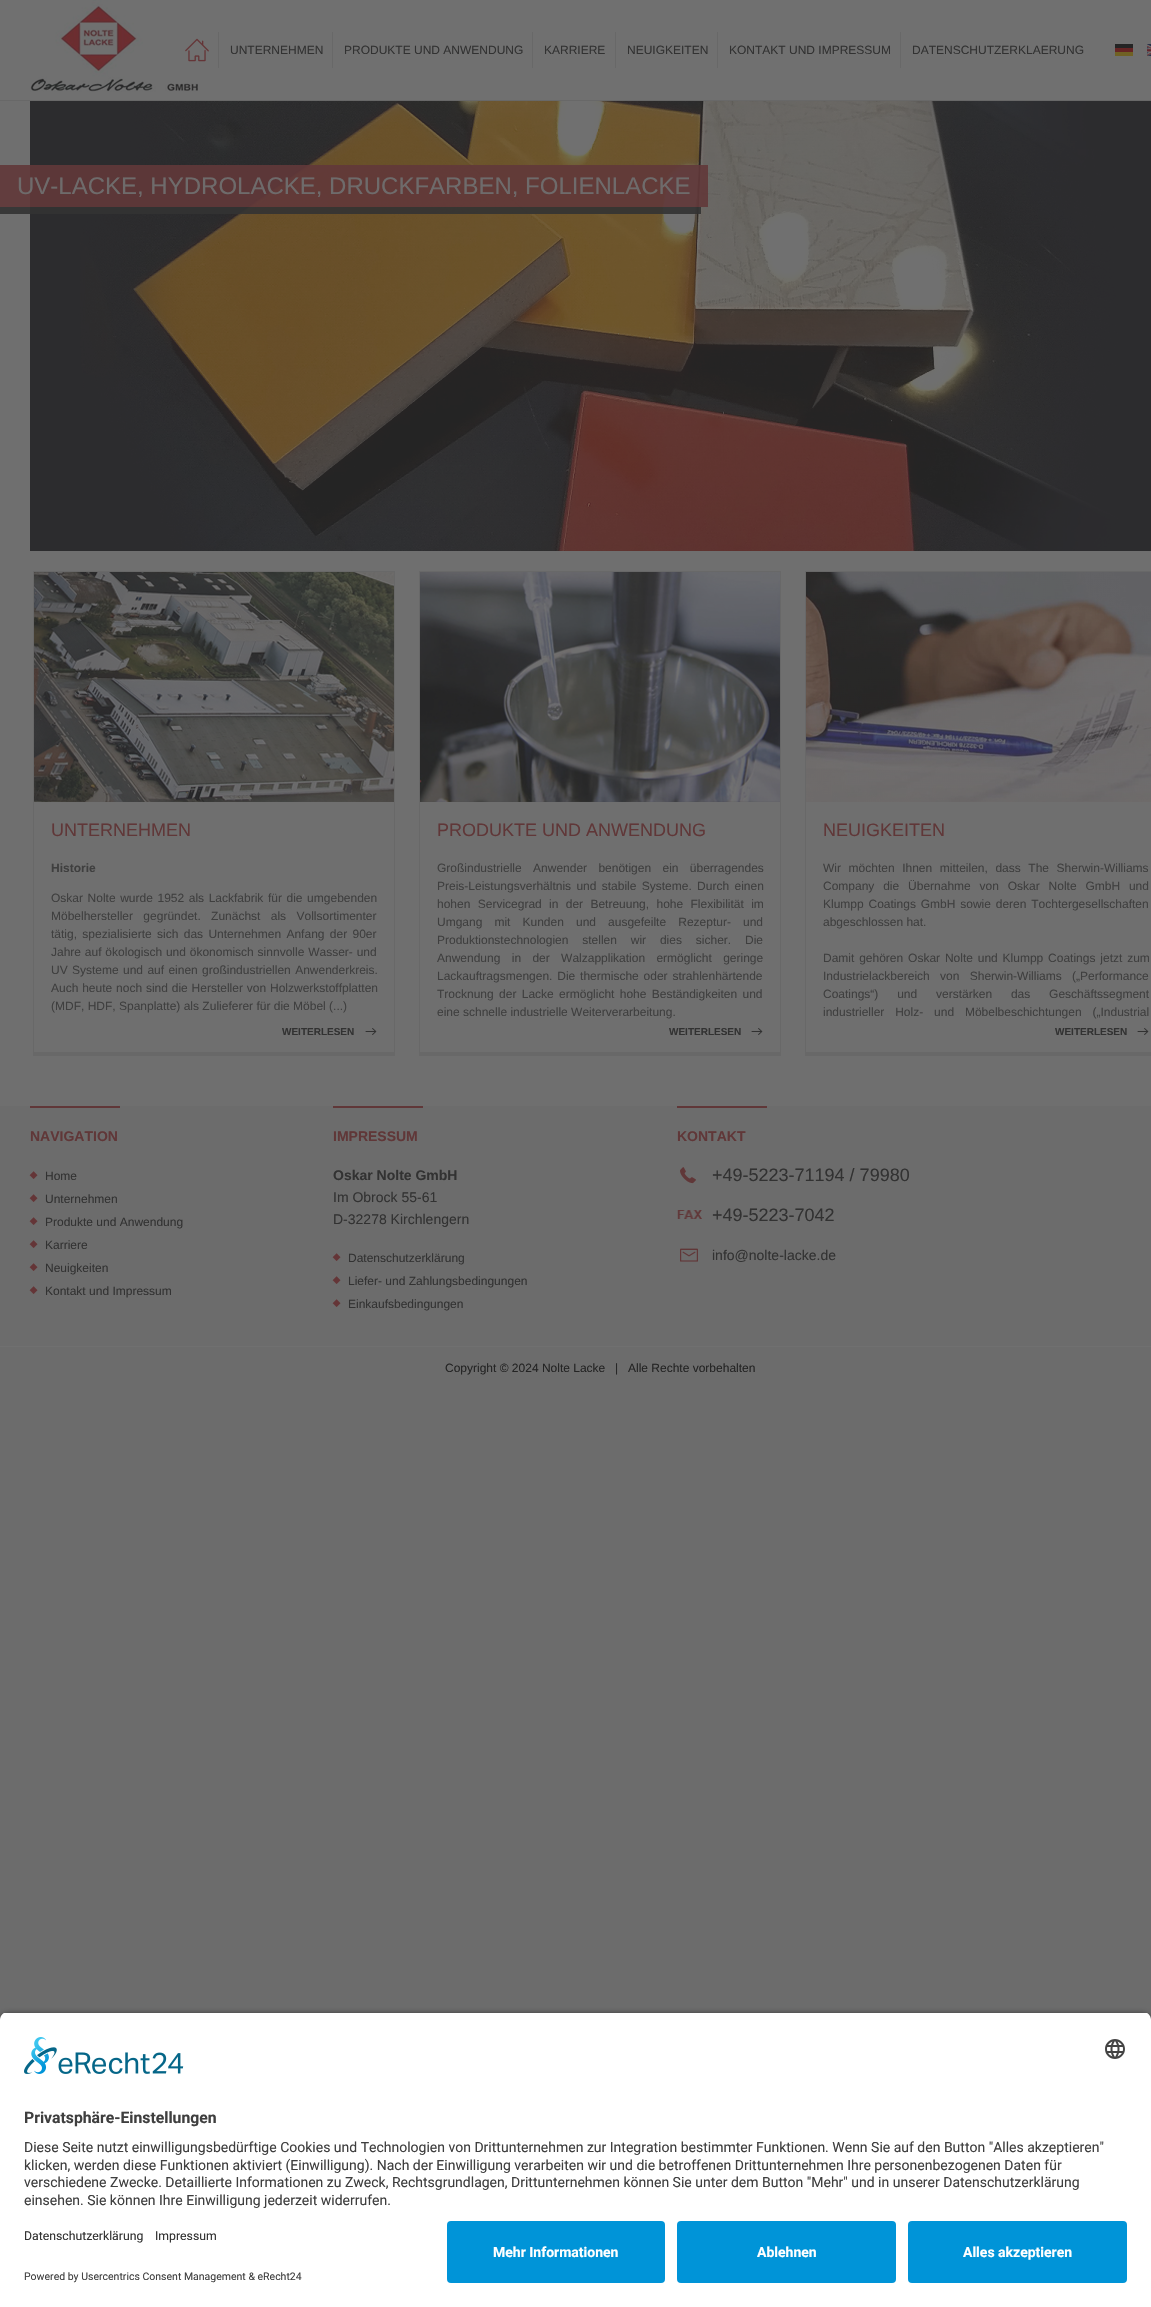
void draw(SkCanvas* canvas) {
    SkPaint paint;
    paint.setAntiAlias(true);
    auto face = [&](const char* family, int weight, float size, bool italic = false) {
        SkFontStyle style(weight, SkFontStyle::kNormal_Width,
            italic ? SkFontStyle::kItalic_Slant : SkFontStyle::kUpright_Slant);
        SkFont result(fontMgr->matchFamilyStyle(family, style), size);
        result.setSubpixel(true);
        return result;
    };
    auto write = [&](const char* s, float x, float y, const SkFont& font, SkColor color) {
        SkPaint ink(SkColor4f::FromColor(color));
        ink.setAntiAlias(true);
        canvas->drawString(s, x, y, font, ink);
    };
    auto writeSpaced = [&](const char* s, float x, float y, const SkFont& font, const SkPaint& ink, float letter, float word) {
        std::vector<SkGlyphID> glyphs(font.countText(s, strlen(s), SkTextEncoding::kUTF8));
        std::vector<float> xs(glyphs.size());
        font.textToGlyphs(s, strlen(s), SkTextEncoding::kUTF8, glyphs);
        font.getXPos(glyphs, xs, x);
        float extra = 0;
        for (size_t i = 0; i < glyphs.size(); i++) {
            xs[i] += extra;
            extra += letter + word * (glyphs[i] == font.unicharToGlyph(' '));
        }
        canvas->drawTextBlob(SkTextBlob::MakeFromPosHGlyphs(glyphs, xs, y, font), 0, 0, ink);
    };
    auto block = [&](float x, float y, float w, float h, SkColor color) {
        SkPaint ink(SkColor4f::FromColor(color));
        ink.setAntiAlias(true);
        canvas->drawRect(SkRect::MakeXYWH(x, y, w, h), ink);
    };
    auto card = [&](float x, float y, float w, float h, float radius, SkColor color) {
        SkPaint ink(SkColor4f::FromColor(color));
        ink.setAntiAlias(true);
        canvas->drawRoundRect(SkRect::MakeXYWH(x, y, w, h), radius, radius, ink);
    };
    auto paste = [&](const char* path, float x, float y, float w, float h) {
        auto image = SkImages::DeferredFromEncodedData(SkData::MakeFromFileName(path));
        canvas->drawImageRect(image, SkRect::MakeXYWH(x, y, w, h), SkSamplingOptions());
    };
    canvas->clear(SkColorSetRGB(108, 108, 108));
    block(0, 101, 1151, 1005, SkColorSetRGB(111, 111, 111));
    block(0, 0, 1151, 100, SkColorSetRGB(112, 112, 112));
    block(0, 100, 1151, 1, SkColorSetRGB(104, 104, 104));
    paste("pic1.png", 30, 0, 168, 92);
    paste("pic2.png", 185, 38, 24, 24);
    block(218, 32, 1, 36, SkColorSetRGB(104, 104, 104));
    auto kFont1 = face("Liberation Sans", 400, 12);
    write("UNTERNEHMEN", 230, 54, kFont1, SkColorSetRGB(50, 50, 50));
    block(332, 32, 1, 36, SkColorSetRGB(104, 104, 104));
    write("PRODUKTE UND ANWENDUNG", 344, 54, kFont1, SkColorSetRGB(50, 50, 50));
    block(532, 32, 1, 36, SkColorSetRGB(104, 104, 104));
    write("KARRIERE", 544, 54, kFont1, SkColorSetRGB(50, 50, 50));
    block(615, 32, 1, 36, SkColorSetRGB(104, 104, 104));
    write("NEUIGKEITEN", 627, 54, kFont1, SkColorSetRGB(50, 50, 50));
    block(717, 32, 1, 36, SkColorSetRGB(104, 104, 104));
    write("KONTAKT UND IMPRESSUM", 729, 54, kFont1, SkColorSetRGB(50, 50, 50));
    block(900, 32, 1, 36, SkColorSetRGB(104, 104, 104));
    write("DATENSCHUTZERKLAERUNG", 912, 54, kFont1, SkColorSetRGB(50, 50, 50));
    paste("pic3.png", 1115, 44, 18, 12);
    paste("pic4.png", 1147, 44, 4, 12);
    paste("pic5.png", 30, 101, 1121, 450);
    paint.setColor(SkColorSetARGB(230, 50, 50, 50));
    canvas->drawPath(SkPathBuilder().moveTo(-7, 172).lineTo(-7, 214).lineTo(701, 214).lineTo(701, 207).lineTo(0, 207).lineTo(0, 172).close().detach(), paint);
    block(0, 165, 708, 42, SkColorSetARGB(230, 96, 55, 56));
    auto kFont2 = face("Liberation Sans", 400, 24);
    write("UV-LACKE, HYDROLACKE, DRUCKFARBEN, FOLIENLACKE", 17, 194, kFont2, SkColorSetRGB(110, 107, 107));
    block(33, 571, 362, 1, SkColorSetRGB(104, 104, 104));
    block(394, 571, 1, 485, SkColorSetRGB(104, 104, 104));
    block(33, 1052, 362, 4, SkColorSetRGB(104, 104, 104));
    block(33, 571, 1, 485, SkColorSetRGB(104, 104, 104));
    paste("pic6.png", 34, 572, 360, 230);
    auto kFont3 = face("Liberation Sans", 400, 18);
    write("UNTERNEHMEN", 51, 836, kFont3, SkColorSetRGB(96, 55, 56));
    auto kFont4 = face("Liberation Sans", 700, 12);
    write("Historie", 51, 872, kFont4, SkColorSetRGB(63, 63, 63));
    paint.setColor(SkColorSetRGB(63, 63, 63));
    writeSpaced("Oskar Nolte wurde 1952 als Lackfabrik für die umgebenden", 51, 902, kFont1, paint, 0, 1.25f);
    writeSpaced("Möbelhersteller gegründet. Zunächst als Vollsortimenter", 51, 920, kFont1, paint, 0, 7);
    writeSpaced("tätig, spezialisierte sich das Unternehmen Anfang der 90er", 51, 938, kFont1, paint, 0, 2);
    writeSpaced("Jahre auf ökologisch und ökonomisch sinnvolle Wasser- und", 51, 956, kFont1, paint, 0, 0.5f);
    writeSpaced("UV Systeme und auf einen großindustriellen Anwenderkreis.", 51, 974, kFont1, paint, 0, 1);
    writeSpaced("Auch heute noch sind die Hersteller von Holzwerkstoffplatten", 51, 992, kFont1, paint, 0, 0.5f);
    write("(MDF, HDF, Spanplatte) als Zulieferer für die Möbel (...)", 51, 1010, kFont1, SkColorSetRGB(63, 63, 63));
    auto kFont5 = face("Liberation Sans", 700, 10);
    write("WEITERLESEN", 282, 1035, kFont5, SkColorSetRGB(50, 50, 50));
    paste("pic7.png", 365, 1028, 12, 7);
    block(419, 571, 362, 1, SkColorSetRGB(104, 104, 104));
    block(780, 571, 1, 485, SkColorSetRGB(104, 104, 104));
    block(419, 1052, 362, 4, SkColorSetRGB(104, 104, 104));
    block(419, 571, 1, 485, SkColorSetRGB(104, 104, 104));
    paste("pic8.png", 420, 572, 360, 230);
    write("PRODUKTE UND ANWENDUNG", 437, 836, kFont3, SkColorSetRGB(96, 55, 56));
    writeSpaced("Großindustrielle Anwender benötigen ein überragendes", 437, 872, kFont1, paint, 0, 8);
    writeSpaced("Preis-Leistungsverhältnis und stabile Systeme. Durch einen", 437, 890, kFont1, paint, 0, 2);
    writeSpaced("hohen Servicegrad in der Betreuung, hohe Flexibilität im", 437, 908, kFont1, paint, 0, 4);
    writeSpaced("Umgang mit Kunden und ausgefeilte Rezeptur- und", 437, 926, kFont1, paint, 0, 8.75f);
    writeSpaced("Produktionstechnologien stellen wir dies sicher. Die", 437, 944, kFont1, paint, 0, 10.5f);
    writeSpaced("Anwendung in der Walzapplikation ermöglicht geringe", 437, 962, kFont1, paint, 0, 8);
    writeSpaced("Lackauftragsmengen. Die thermische oder strahlenhärtende", 437, 980, kFont1, paint, 0, 1.5f);
    writeSpaced("Trocknung der Lacke ermöglicht hohe Beständigkeiten und", 437, 998, kFont1, paint, 0, 2);
    write("eine schnelle industrielle Weiterverarbeitung.", 437, 1016, kFont1, SkColorSetRGB(63, 63, 63));
    write("WEITERLESEN", 669, 1035, kFont5, SkColorSetRGB(50, 50, 50));
    paste("pic7.png", 751, 1028, 12, 7);
    block(805, 571, 346, 1, SkColorSetRGB(104, 104, 104));
    block(805, 1052, 346, 4, SkColorSetRGB(104, 104, 104));
    block(805, 571, 1, 485, SkColorSetRGB(104, 104, 104));
    paste("pic9.png", 806, 572, 345, 230);
    write("NEUIGKEITEN", 823, 836, kFont3, SkColorSetRGB(96, 55, 56));
    writeSpaced("Wir möchten Ihnen mitteilen, dass The Sherwin-Williams", 823, 872, kFont1, paint, 0, 4.25f);
    writeSpaced("Company die Übernahme von Oskar Nolte GmbH und", 823, 890, kFont1, paint, 0, 5.5f);
    writeSpaced("Klumpp Coatings GmbH sowie deren Tochtergesellschaften", 823, 908, kFont1, paint, 0, 1.5f);
    write("abgeschlossen hat.", 823, 926, kFont1, SkColorSetRGB(63, 63, 63));
    writeSpaced("Damit gehören Oskar Nolte und Klumpp Coatings jetzt zum", 823, 962, kFont1, paint, 0, 1.5f);
    writeSpaced("Industrielackbereich von Sherwin-Williams („Performance", 823, 980, kFont1, paint, 0, 7);
    writeSpaced("Coatings“) und verstärken das Geschäftssegment", 823, 998, kFont1, paint, 0, 15.5f);
    writeSpaced("industrieller Holz- und Möbelbeschichtungen („Industrial", 823, 1016, kFont1, paint, 0, 7.5f);
    write("WEITERLESEN", 1055, 1035, kFont5, SkColorSetRGB(50, 50, 50));
    paste("pic7.png", 1137, 1028, 12, 7);
    block(30, 1106, 90, 2, SkColorSetRGB(96, 55, 56));
    auto kFont6 = face("Liberation Sans", 700, 14);
    write("NAVIGATION", 30, 1141, kFont6, SkColorSetRGB(96, 55, 56));
    paste("pic10.png", 29, 1171, 9, 8);
    write("Home", 45, 1180, kFont1, SkColorSetRGB(50, 50, 50));
    paste("pic10.png", 29, 1194, 9, 8);
    write("Unternehmen", 45, 1203, kFont1, SkColorSetRGB(50, 50, 50));
    paste("pic10.png", 29, 1217, 9, 8);
    write("Produkte und Anwendung", 45, 1226, kFont1, SkColorSetRGB(50, 50, 50));
    paste("pic10.png", 29, 1240, 9, 8);
    write("Karriere", 45, 1249, kFont1, SkColorSetRGB(50, 50, 50));
    paste("pic10.png", 29, 1263, 9, 8);
    write("Neuigkeiten", 45, 1272, kFont1, SkColorSetRGB(50, 50, 50));
    paste("pic10.png", 29, 1286, 9, 8);
    write("Kontakt und Impressum", 45, 1295, kFont1, SkColorSetRGB(50, 50, 50));
    block(333, 1106, 90, 2, SkColorSetRGB(96, 55, 56));
    write("IMPRESSUM", 333, 1141, kFont6, SkColorSetRGB(96, 55, 56));
    write("Oskar Nolte GmbH", 333, 1180, kFont6, SkColorSetRGB(50, 50, 50));
    auto kFont7 = face("Liberation Sans", 400, 14);
    write("Im Obrock 55-61", 333, 1202, kFont7, SkColorSetRGB(50, 50, 50));
    write("D-32278 Kirchlengern", 333, 1224, kFont7, SkColorSetRGB(50, 50, 50));
    paste("pic10.png", 332, 1253, 9, 8);
    write("Datenschutzerklärung", 348, 1262, kFont1, SkColorSetRGB(50, 50, 50));
    paste("pic10.png", 332, 1276, 9, 8);
    write("Liefer- und Zahlungsbedingungen", 348, 1285, kFont1, SkColorSetRGB(50, 50, 50));
    paste("pic10.png", 332, 1299, 9, 8);
    write("Einkaufsbedingungen", 348, 1308, kFont1, SkColorSetRGB(50, 50, 50));
    block(677, 1106, 90, 2, SkColorSetRGB(96, 55, 56));
    write("KONTAKT", 677, 1141, kFont6, SkColorSetRGB(96, 55, 56));
    paste("pic11.png", 680, 1167, 16, 17);
    write("+49-5223-71194 / 79980", 712, 1181, kFont3, SkColorSetRGB(50, 50, 50));
    paste("pic12.png", 677, 1210, 25, 9);
    write("+49-5223-7042", 712, 1221, kFont3, SkColorSetRGB(50, 50, 50));
    paste("pic13.png", 680, 1248, 18, 14);
    write("info@nolte-lacke.de", 712, 1260, kFont7, SkColorSetRGB(50, 50, 50));
    block(0, 1346, 1151, 1, SkColorSetRGB(112, 112, 112));
    write("Copyright © 2024 Nolte Lacke", 445, 1372, kFont1, SkColorSetRGB(36, 36, 36));
    write("|", 615, 1372, kFont1, SkColorSetRGB(36, 36, 36));
    write("Alle Rechte vorbehalten", 628, 1372, kFont1, SkColorSetRGB(36, 36, 36));
    paint.setColor(SkColorSetARGB(204, 0, 0, 0));
    paint.setMaskFilter(SkMaskFilter::MakeBlur(kNormal_SkBlurStyle, 3.5f));
    canvas->drawRoundRect(SkRect::MakeXYWH(0, 2015, 1151, 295), 8, 8, paint);
    paint.setMaskFilter(nullptr);
    canvas->save();
    canvas->clipPath(SkPathBuilder().moveTo(8, 2012).lineTo(1143, 2012).cubicTo(1147.5f, 2012, 1151, 2015.5f, 1151, 2020).lineTo(1151, 2213).lineTo(0, 2213).lineTo(0, 2020).cubicTo(0, 2015.5f, 3.5f, 2012, 8, 2012).close().detach(), true);
    block(0, 2013, 1151, 200, SK_ColorWHITE);
    canvas->restore();
    paste("pic14.png", 24, 2037, 160, 37);
    paste("pic15.png", 1105, 2039, 20, 20);
    auto kFont8 = face("Roboto", 700, 15.75f);
    write("Privatsphäre-Einstellungen", 24, 2123, kFont8, SkColorSetRGB(63, 63, 63));
    auto kFont9 = face("Roboto", 400, 14);
    write("Diese Seite nutzt einwilligungsbedürftige Cookies und Technologien von Drittunternehmen zur Integration bestimmter Funktionen. Wenn Sie auf den Button \"Alles akzeptieren\"", 24, 2152, kFont9, SkColorSetRGB(63, 63, 63));
    write("klicken, werden diese Funktionen aktiviert (Einwilligung). Nach der Einwilligung verarbeiten wir und die betroffenen Drittunternehmen Ihre personenbezogenen Daten für", 24, 2170, kFont9, SkColorSetRGB(63, 63, 63));
    write("verschiedene Zwecke. Detaillierte Informationen zu Zweck, Rechtsgrundlagen, Drittunternehmen können Sie unter dem Button \"Mehr\" und in unserer Datenschutzerklärung", 24, 2187, kFont9, SkColorSetRGB(63, 63, 63));
    write("einsehen. Sie können Ihre Einwilligung jederzeit widerrufen.", 24, 2205, kFont9, SkColorSetRGB(63, 63, 63));
    block(0, 2213, 1151, 94, SK_ColorWHITE);
    auto kFont10 = face("Roboto", 400, 12.25f);
    write("Datenschutzerklärung", 24, 2240, kFont10, SkColorSetRGB(50, 50, 50));
    write("Impressum", 155, 2240, kFont10, SkColorSetRGB(50, 50, 50));
    auto kFont11 = face("Roboto", 400, 10.5f);
    write("Powered by Usercentrics Consent Management & eRecht24", 24, 2280, kFont11, SkColorSetRGB(63, 63, 63));
    card(447, 2221, 218, 62, 4, SkColorSetRGB(0, 148, 216));
    auto kFont12 = face("Roboto", 700, 14);
    write("Mehr Informationen", 493, 2257, kFont12, SK_ColorWHITE);
    card(677, 2221, 219, 62, 4, SkColorSetRGB(0, 148, 216));
    write("Ablehnen", 757, 2257, kFont12, SK_ColorWHITE);
    card(908, 2221, 219, 62, 4, SkColorSetRGB(0, 148, 216));
    write("Alles akzeptieren", 963, 2257, kFont12, SK_ColorWHITE);
}
